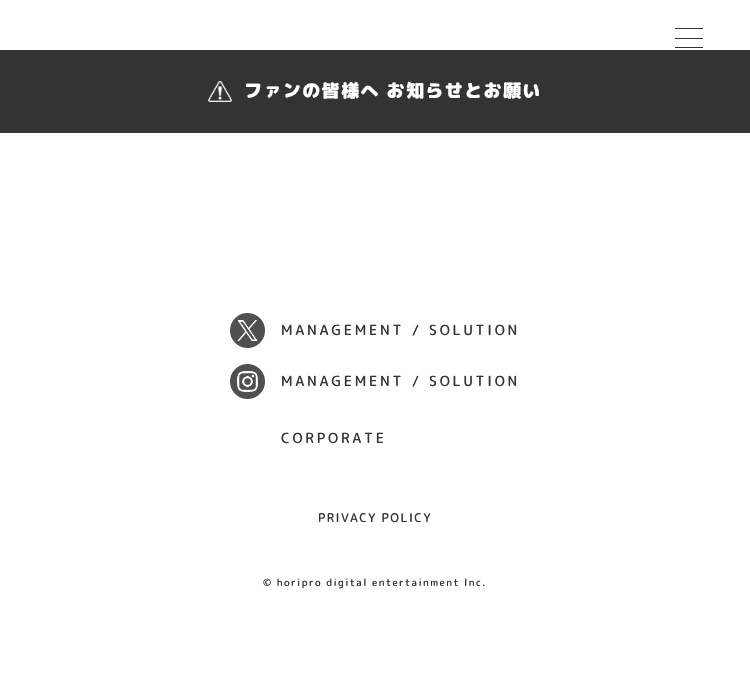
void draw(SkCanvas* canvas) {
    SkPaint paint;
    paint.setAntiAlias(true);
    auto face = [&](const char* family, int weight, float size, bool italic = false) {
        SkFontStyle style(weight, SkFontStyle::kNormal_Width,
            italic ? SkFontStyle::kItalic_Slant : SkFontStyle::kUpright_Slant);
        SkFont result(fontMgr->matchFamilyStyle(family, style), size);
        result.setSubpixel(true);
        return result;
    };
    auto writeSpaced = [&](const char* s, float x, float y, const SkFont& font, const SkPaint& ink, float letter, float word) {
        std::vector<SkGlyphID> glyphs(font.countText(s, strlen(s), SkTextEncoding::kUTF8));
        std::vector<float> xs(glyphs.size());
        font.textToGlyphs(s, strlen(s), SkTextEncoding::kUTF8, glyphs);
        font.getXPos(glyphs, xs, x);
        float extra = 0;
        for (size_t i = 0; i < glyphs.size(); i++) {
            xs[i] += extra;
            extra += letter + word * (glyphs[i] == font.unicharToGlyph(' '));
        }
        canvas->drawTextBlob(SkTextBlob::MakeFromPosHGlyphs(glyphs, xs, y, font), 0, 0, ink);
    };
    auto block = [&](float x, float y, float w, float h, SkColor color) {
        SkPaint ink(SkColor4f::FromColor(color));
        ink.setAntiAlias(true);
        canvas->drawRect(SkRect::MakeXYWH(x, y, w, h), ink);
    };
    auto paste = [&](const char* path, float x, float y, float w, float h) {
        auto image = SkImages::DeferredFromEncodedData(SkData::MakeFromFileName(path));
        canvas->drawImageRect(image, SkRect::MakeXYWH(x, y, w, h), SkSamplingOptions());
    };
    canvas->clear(SK_ColorWHITE);
    block(675, 28, 28, 1, SkColorSetRGB(51, 51, 51));
    block(675, 38, 28, 1, SkColorSetRGB(51, 51, 51));
    block(675, 47, 28, 1, SkColorSetRGB(51, 51, 51));
    block(0, 50, 750, 83, SkColorSetRGB(51, 51, 51));
    paste("pic1.png", 208, 81, 24, 21);
    auto kFont1 = face("Rounded Mplus 1c", 900, 18);
    paint.setColor(SK_ColorWHITE);
    writeSpaced("ファンの皆様へ お知らせとお願い", 244, 97, kFont1, paint, 1.4f, 0);
    paste("pic2.png", 230, 313, 35, 35);
    auto kFont2 = face("Rounded Mplus 1c", 500, 14);
    paint.setColor(SkColorSetRGB(51, 51, 51));
    writeSpaced("MANAGEMENT", 281, 335, kFont2, paint, 2.75f, 0);
    writeSpaced("/", 412, 335, kFont2, paint, 2.75f, 0);
    writeSpaced("SOLUTION", 429, 335, kFont2, paint, 2.75f, 0);
    paste("pic3.png", 230, 364, 35, 35);
    writeSpaced("MANAGEMENT", 281, 386, kFont2, paint, 2.75f, 0);
    writeSpaced("/", 412, 386, kFont2, paint, 2.75f, 0);
    writeSpaced("SOLUTION", 429, 386, kFont2, paint, 2.75f, 0);
    writeSpaced("CORPORATE", 281, 443, kFont2, paint, 2.75f, 0);
    auto kFont3 = face("Rounded Mplus 1c", 500, 12);
    writeSpaced("PRIVACY POLICY", 318, 522, kFont3, paint, 1.4f, 0);
    auto kFont4 = face("Rounded Mplus 1c", 500, 10);
    writeSpaced("© horipro digital entertainment Inc.", 263, 586, kFont4, paint, 1.4f, 0);
}
